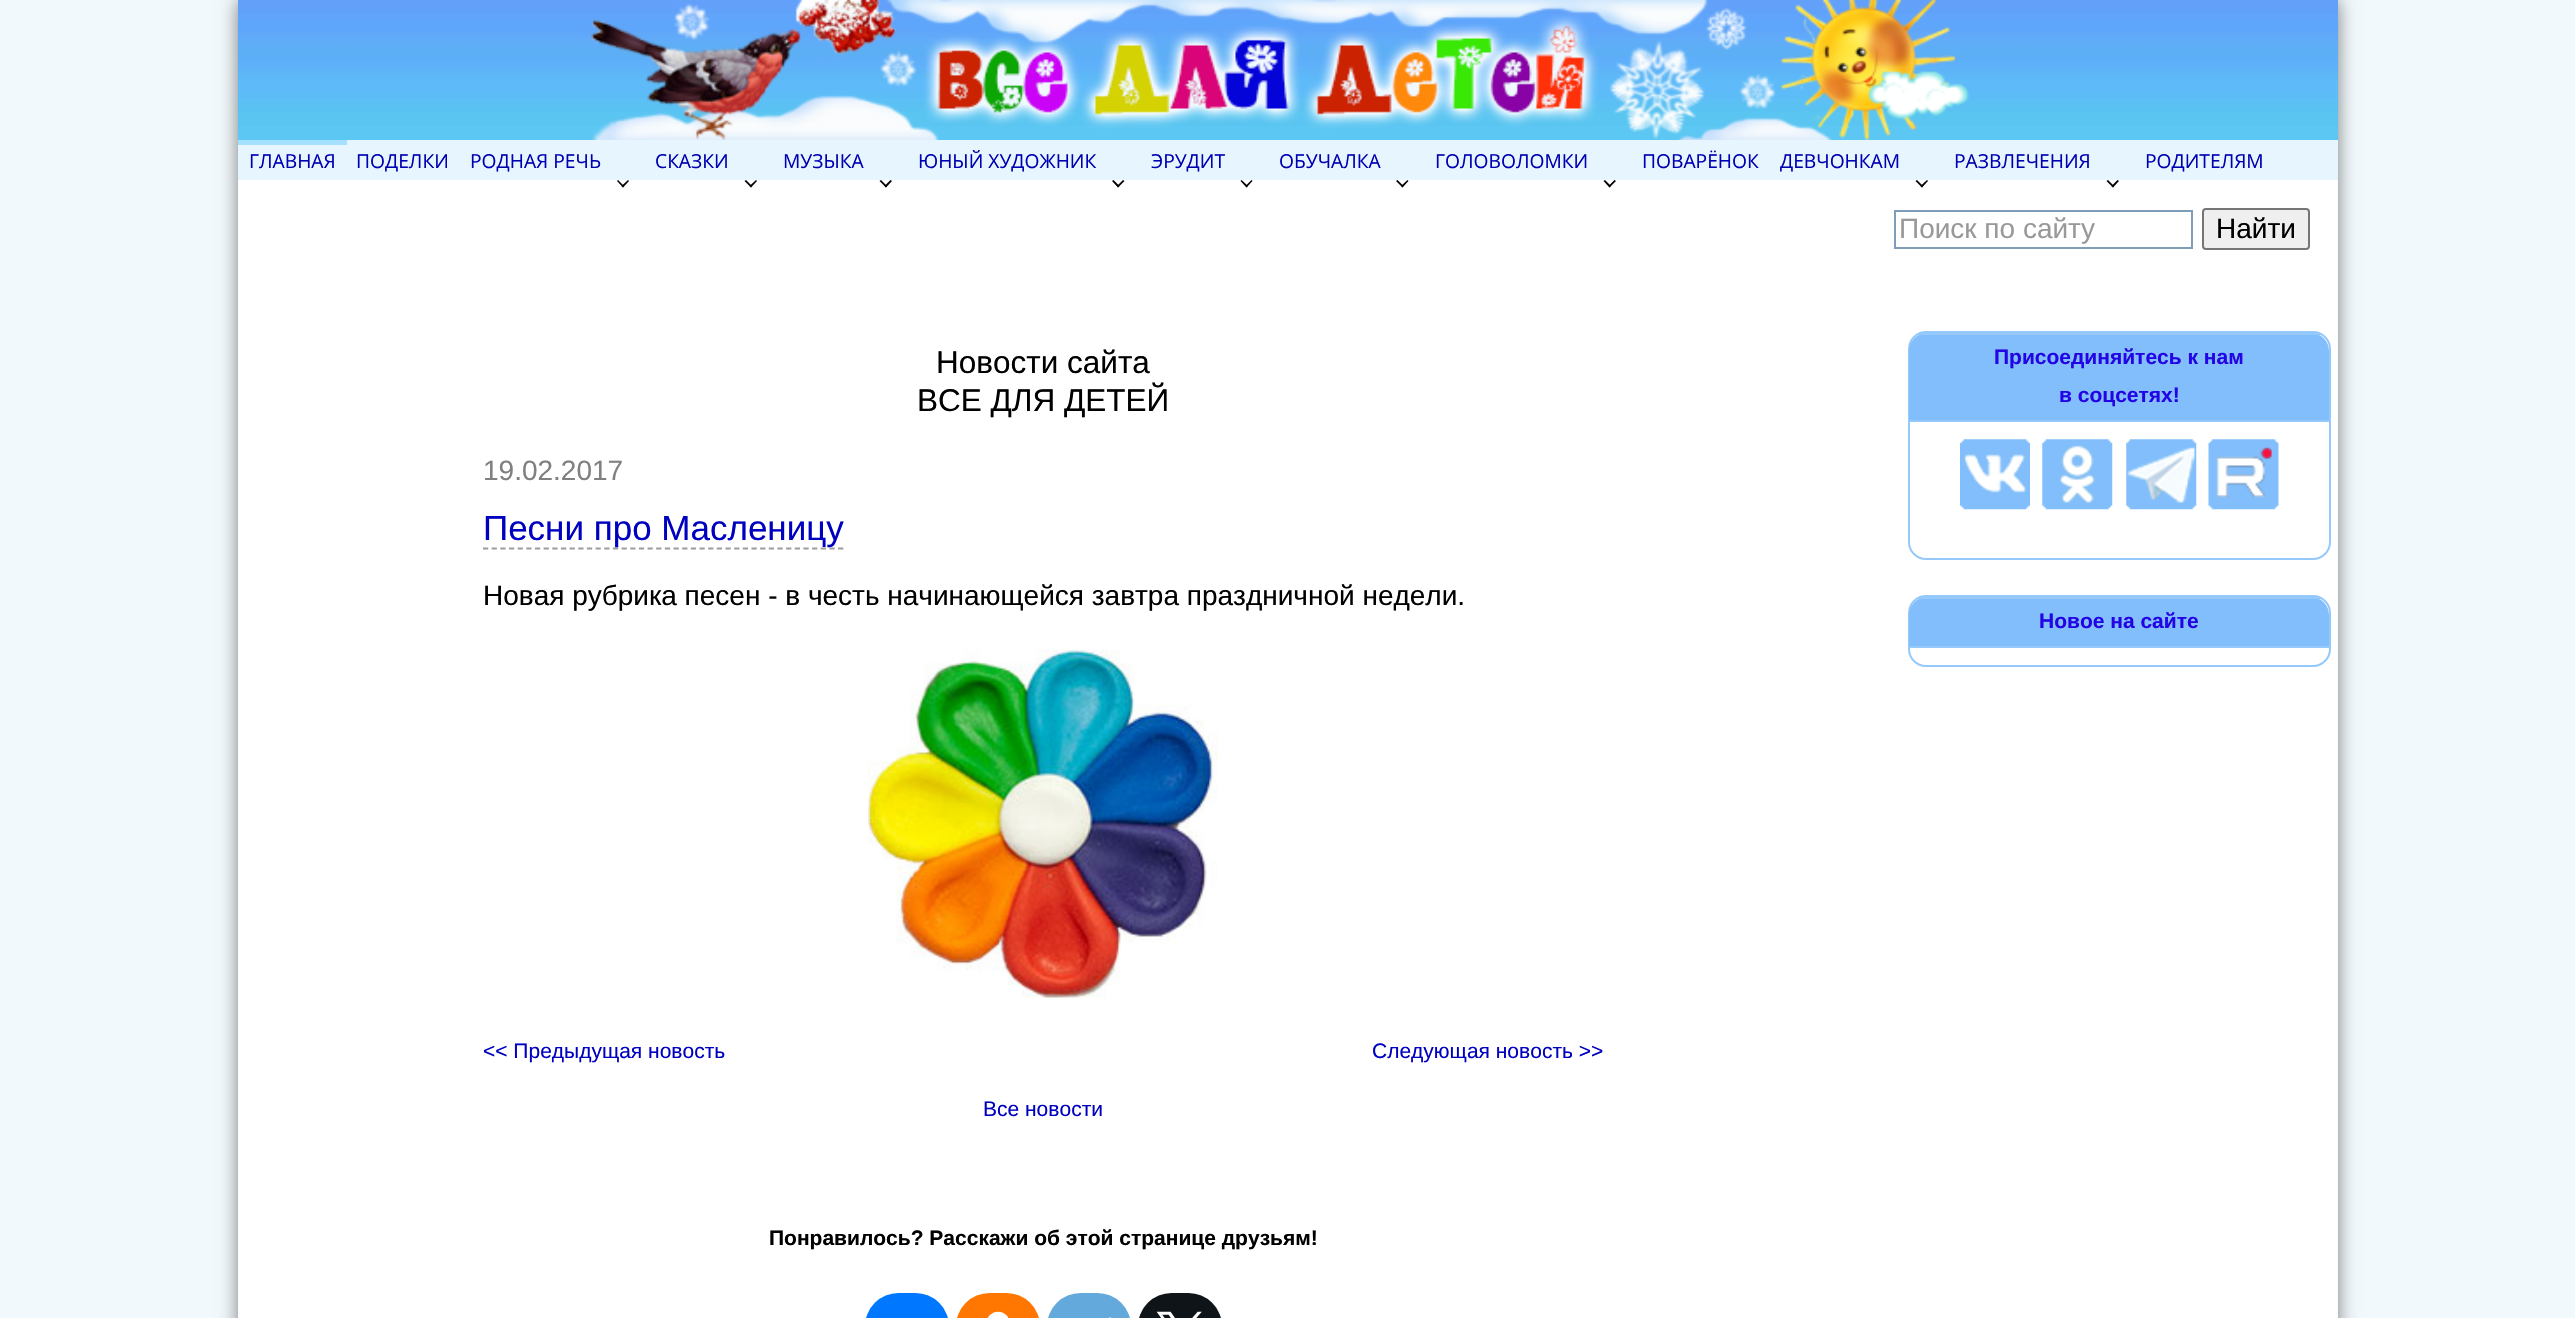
void draw(SkCanvas* canvas) {
    SkPaint paint;
    paint.setAntiAlias(true);
    auto face = [&](const char* family, int weight, float size, bool italic = false) {
        SkFontStyle style(weight, SkFontStyle::kNormal_Width,
            italic ? SkFontStyle::kItalic_Slant : SkFontStyle::kUpright_Slant);
        SkFont result(fontMgr->matchFamilyStyle(family, style), size);
        result.setSubpixel(true);
        return result;
    };
    auto write = [&](const char* s, float x, float y, const SkFont& font, SkColor color) {
        SkPaint ink(SkColor4f::FromColor(color));
        ink.setAntiAlias(true);
        canvas->drawString(s, x, y, font, ink);
    };
    auto block = [&](float x, float y, float w, float h, SkColor color) {
        SkPaint ink(SkColor4f::FromColor(color));
        ink.setAntiAlias(true);
        canvas->drawRect(SkRect::MakeXYWH(x, y, w, h), ink);
    };
    auto card = [&](float x, float y, float w, float h, float radius, SkColor color) {
        SkPaint ink(SkColor4f::FromColor(color));
        ink.setAntiAlias(true);
        canvas->drawRoundRect(SkRect::MakeXYWH(x, y, w, h), radius, radius, ink);
    };
    auto paste = [&](const char* path, float x, float y, float w, float h) {
        auto image = SkImages::DeferredFromEncodedData(SkData::MakeFromFileName(path));
        canvas->drawImageRect(image, SkRect::MakeXYWH(x, y, w, h), SkSamplingOptions());
    };
    canvas->clear(SkColorSetRGB(242, 249, 252));
    paint.setColor(SkColorSetARGB(128, 0, 0, 0));
    paint.setMaskFilter(SkMaskFilter::MakeBlur(kNormal_SkBlurStyle, 9));
    canvas->drawRect(SkRect::MakeXYWH(238, 0, 2100, 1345), paint);
    paint.setMaskFilter(nullptr);
    block(238, 180, 2100, 1138, SK_ColorWHITE);
    paste("pic1.png", 238, 0, 2100, 140);
    paste("pic2.png", 591, 0, 1378, 140);
    block(238, 140, 2100, 40, SkColorSetRGB(231, 246, 254));
    block(238, 140, 109, 5, SkColorSetRGB(165, 224, 254));
    auto kFont1 = face("Open Sans", 400, 19.25f);
    write("ГЛАВНАЯ", 249, 168, kFont1, SkColorSetRGB(0, 0, 179));
    write("ПОДЕЛКИ", 356, 168, kFont1, SkColorSetRGB(0, 0, 179));
    write("РОДНАЯ РЕЧЬ", 470, 168, kFont1, SkColorSetRGB(0, 0, 179));
    paint.setColor(SK_ColorBLACK);
    canvas->drawPath(SkPathBuilder().moveTo(628, 180).lineTo(629, 181).lineTo(623, 187.5f).lineTo(621.5f, 186).close().detach(), paint);
    canvas->drawPath(SkPathBuilder().moveTo(618, 180).lineTo(624, 186).lineTo(623, 187.5f).lineTo(617, 181).close().detach(), paint);
    write("СКАЗКИ", 655, 168, kFont1, SkColorSetRGB(0, 0, 179));
    canvas->drawPath(SkPathBuilder().moveTo(756, 180).lineTo(757, 181).lineTo(751, 187.5f).lineTo(749.5f, 186).close().detach(), paint);
    canvas->drawPath(SkPathBuilder().moveTo(746, 180).lineTo(752, 186).lineTo(751, 187.5f).lineTo(744.5f, 181).close().detach(), paint);
    write("МУЗЫКА", 783, 168, kFont1, SkColorSetRGB(0, 0, 179));
    canvas->drawPath(SkPathBuilder().moveTo(890.5f, 180).lineTo(892, 181).lineTo(886, 187.5f).lineTo(884.5f, 186).close().detach(), paint);
    canvas->drawPath(SkPathBuilder().moveTo(881, 180).lineTo(887, 186).lineTo(886, 187.5f).lineTo(879.5f, 181).close().detach(), paint);
    write("ЮНЫЙ ХУДОЖНИК", 918, 168, kFont1, SkColorSetRGB(0, 0, 179));
    canvas->drawPath(SkPathBuilder().moveTo(1123, 180).lineTo(1124.5f, 181).lineTo(1118, 187.5f).lineTo(1117, 186).close().detach(), paint);
    canvas->drawPath(SkPathBuilder().moveTo(1113.5f, 180).lineTo(1119.5f, 186).lineTo(1118, 187.5f).lineTo(1112, 181).close().detach(), paint);
    write("ЭРУДИТ", 1151, 168, kFont1, SkColorSetRGB(0, 0, 179));
    canvas->drawPath(SkPathBuilder().moveTo(1251.5f, 180).lineTo(1252.5f, 181).lineTo(1246.5f, 187.5f).lineTo(1245.5f, 186).close().detach(), paint);
    canvas->drawPath(SkPathBuilder().moveTo(1241.5f, 180).lineTo(1248, 186).lineTo(1246.5f, 187.5f).lineTo(1240.5f, 181).close().detach(), paint);
    write("ОБУЧАЛКА", 1279, 168, kFont1, SkColorSetRGB(0, 0, 179));
    canvas->drawPath(SkPathBuilder().moveTo(1407.5f, 180).lineTo(1408.5f, 181).lineTo(1402.5f, 187.5f).lineTo(1401, 186).close().detach(), paint);
    canvas->drawPath(SkPathBuilder().moveTo(1397.5f, 180).lineTo(1403.5f, 186).lineTo(1402.5f, 187.5f).lineTo(1396, 181).close().detach(), paint);
    write("ГОЛОВОЛОМКИ", 1435, 168, kFont1, SkColorSetRGB(0, 0, 179));
    canvas->drawPath(SkPathBuilder().moveTo(1614.5f, 180).lineTo(1616, 181).lineTo(1609.5f, 187.5f).lineTo(1608.5f, 186).close().detach(), paint);
    canvas->drawPath(SkPathBuilder().moveTo(1605, 180).lineTo(1611, 186).lineTo(1609.5f, 187.5f).lineTo(1603.5f, 181).close().detach(), paint);
    write("ПОВАРЁНОК", 1642, 168, kFont1, SkColorSetRGB(0, 0, 179));
    write("ДЕВЧОНКАМ", 1780, 168, kFont1, SkColorSetRGB(0, 0, 179));
    canvas->drawPath(SkPathBuilder().moveTo(1927, 180).lineTo(1928, 181).lineTo(1922, 187.5f).lineTo(1920.5f, 186).close().detach(), paint);
    canvas->drawPath(SkPathBuilder().moveTo(1917, 180).lineTo(1923, 186).lineTo(1922, 187.5f).lineTo(1915.5f, 181).close().detach(), paint);
    write("РАЗВЛЕЧЕНИЯ", 1954, 168, kFont1, SkColorSetRGB(0, 0, 179));
    canvas->drawPath(SkPathBuilder().moveTo(2117.5f, 180).lineTo(2119, 181).lineTo(2113, 187.5f).lineTo(2111.5f, 186).close().detach(), paint);
    canvas->drawPath(SkPathBuilder().moveTo(2108, 180).lineTo(2114, 186).lineTo(2113, 187.5f).lineTo(2106.5f, 181).close().detach(), paint);
    write("РОДИТЕЛЯМ", 2145, 168, kFont1, SkColorSetRGB(0, 0, 179));
    paint.setStyle(SkPaint::kStroke_Style);
    paint.setStrokeWidth(2);
    paint.setColor(SkColorSetRGB(127, 157, 185));
    canvas->drawRect(SkRect::MakeXYWH(1895, 211, 297, 37), paint);
    auto kFont2 = face("Liberation Sans", 400, 28);
    write("Поиск по сайту", 1899, 238, kFont2, SkColorSetRGB(153, 153, 153));
    paint.setStyle(SkPaint::kFill_Style);
    paint.setColor(SkColorSetRGB(239, 239, 239));
    canvas->drawRoundRect(SkRect::MakeXYWH(2203, 209, 106, 40), 3, 3, paint);
    paint.setStyle(SkPaint::kStroke_Style);
    paint.setColor(SkColorSetRGB(118, 118, 118));
    canvas->drawRoundRect(SkRect::MakeXYWH(2203, 209, 106, 40), 3, 3, paint);
    write("Найти", 2216, 238, kFont2, SK_ColorBLACK);
    auto kFont3 = face("Liberation Sans", 400, 31.5f);
    write("Новости сайта", 936, 373, kFont3, SK_ColorBLACK);
    write("ВСЕ ДЛЯ ДЕТЕЙ", 917, 411, kFont3, SK_ColorBLACK);
    write("19.02.2017", 483, 480, kFont2, SkColorSetRGB(128, 128, 128));
    paint.setStrokeWidth(1.8f);
    paint.setColor(SkColorSetRGB(156, 156, 156));
    paint.setPathEffect(SkDashPathEffect::Make({{5.25f, 3.41f}}, 0));
    canvas->drawPath(SkPathBuilder().moveTo(483, 548.5f).lineTo(843.5f, 548.5f).detach(), paint);
    paint.setPathEffect(nullptr);
    auto kFont4 = face("Liberation Sans", 400, 35);
    write("Песни про Масленицу", 483, 540, kFont4, SkColorSetRGB(0, 0, 192));
    write("Новая рубрика песен - в честь начинающейся завтра праздничной недели.", 483, 605, kFont2, SK_ColorBLACK);
    paste("pic3.png", 868, 649, 350, 349);
    auto kFont5 = face("Liberation Sans", 400, 21);
    write("<< Предыдущая новость", 483, 1058, kFont5, SkColorSetRGB(0, 0, 192));
    write("Следующая новость >>", 1372, 1058, kFont5, SkColorSetRGB(0, 0, 192));
    write("Все новости", 983, 1116, kFont5, SkColorSetRGB(0, 0, 192));
    auto kFont6 = face("Liberation Sans", 700, 21);
    write("Понравилось? Расскажи об этой странице друзьям!", 769, 1245, kFont6, SK_ColorBLACK);
    card(865, 1293, 84, 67, 42, SkColorSetRGB(0, 119, 255));
    card(956, 1293, 84, 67, 42, SkColorSetRGB(255, 119, 0));
    paste("pic4.png", 987, 1311, 22, 7);
    card(1047, 1293, 84, 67, 42, SkColorSetRGB(100, 169, 220));
    paste("pic5.png", 1108, 1317, 4, 1);
    card(1138, 1293, 84, 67, 42, SkColorSetRGB(15, 20, 25));
    paste("pic6.png", 1156, 1311, 46, 7);
    paint.setStrokeWidth(2);
    paint.setColor(SkColorSetRGB(149, 201, 252));
    canvas->drawRoundRect(SkRect::MakeXYWH(1909, 332, 421, 227), 17, 17, paint);
    paint.setStyle(SkPaint::kFill_Style);
    paint.setColor(SkColorSetRGB(130, 190, 251));
    canvas->drawPath(SkPathBuilder().moveTo(1927, 333).lineTo(2311, 333).cubicTo(2321, 333, 2329, 341, 2329, 351).lineTo(2329, 422).lineTo(1909, 422).lineTo(1909, 351).cubicTo(1909, 341, 1917, 333, 1927, 333).close().detach(), paint);
    block(1918, 333, 403, 2, SkColorSetRGB(149, 201, 252));
    block(1909, 420, 420, 2, SkColorSetRGB(149, 201, 252));
    write("Присоединяйтесь к нам", 1994, 364, kFont6, SkColorSetRGB(35, 4, 228));
    write("в соцсетях!", 2059, 402, kFont6, SkColorSetRGB(35, 4, 228));
    paste("pic7.png", 1960, 439, 70, 71);
    paste("pic8.png", 2042, 439, 71, 71);
    paste("pic9.png", 2126, 439, 71, 71);
    paste("pic10.png", 2208, 439, 71, 71);
    paint.setStyle(SkPaint::kStroke_Style);
    paint.setColor(SkColorSetRGB(149, 201, 252));
    canvas->drawRoundRect(SkRect::MakeXYWH(1909, 596, 421, 70), 17, 17, paint);
    paint.setStyle(SkPaint::kFill_Style);
    paint.setColor(SkColorSetRGB(130, 190, 251));
    canvas->drawPath(SkPathBuilder().moveTo(1927, 597).lineTo(2311, 597).cubicTo(2321, 597, 2329, 605, 2329, 615).lineTo(2329, 648).lineTo(1909, 648).lineTo(1909, 615).cubicTo(1909, 605, 1917, 597, 1927, 597).close().detach(), paint);
    block(1918, 597, 403, 2, SkColorSetRGB(149, 201, 252));
    block(1909, 646, 420, 2, SkColorSetRGB(149, 201, 252));
    write("Новое на сайте", 2039, 628, kFont6, SkColorSetRGB(35, 4, 228));
}
